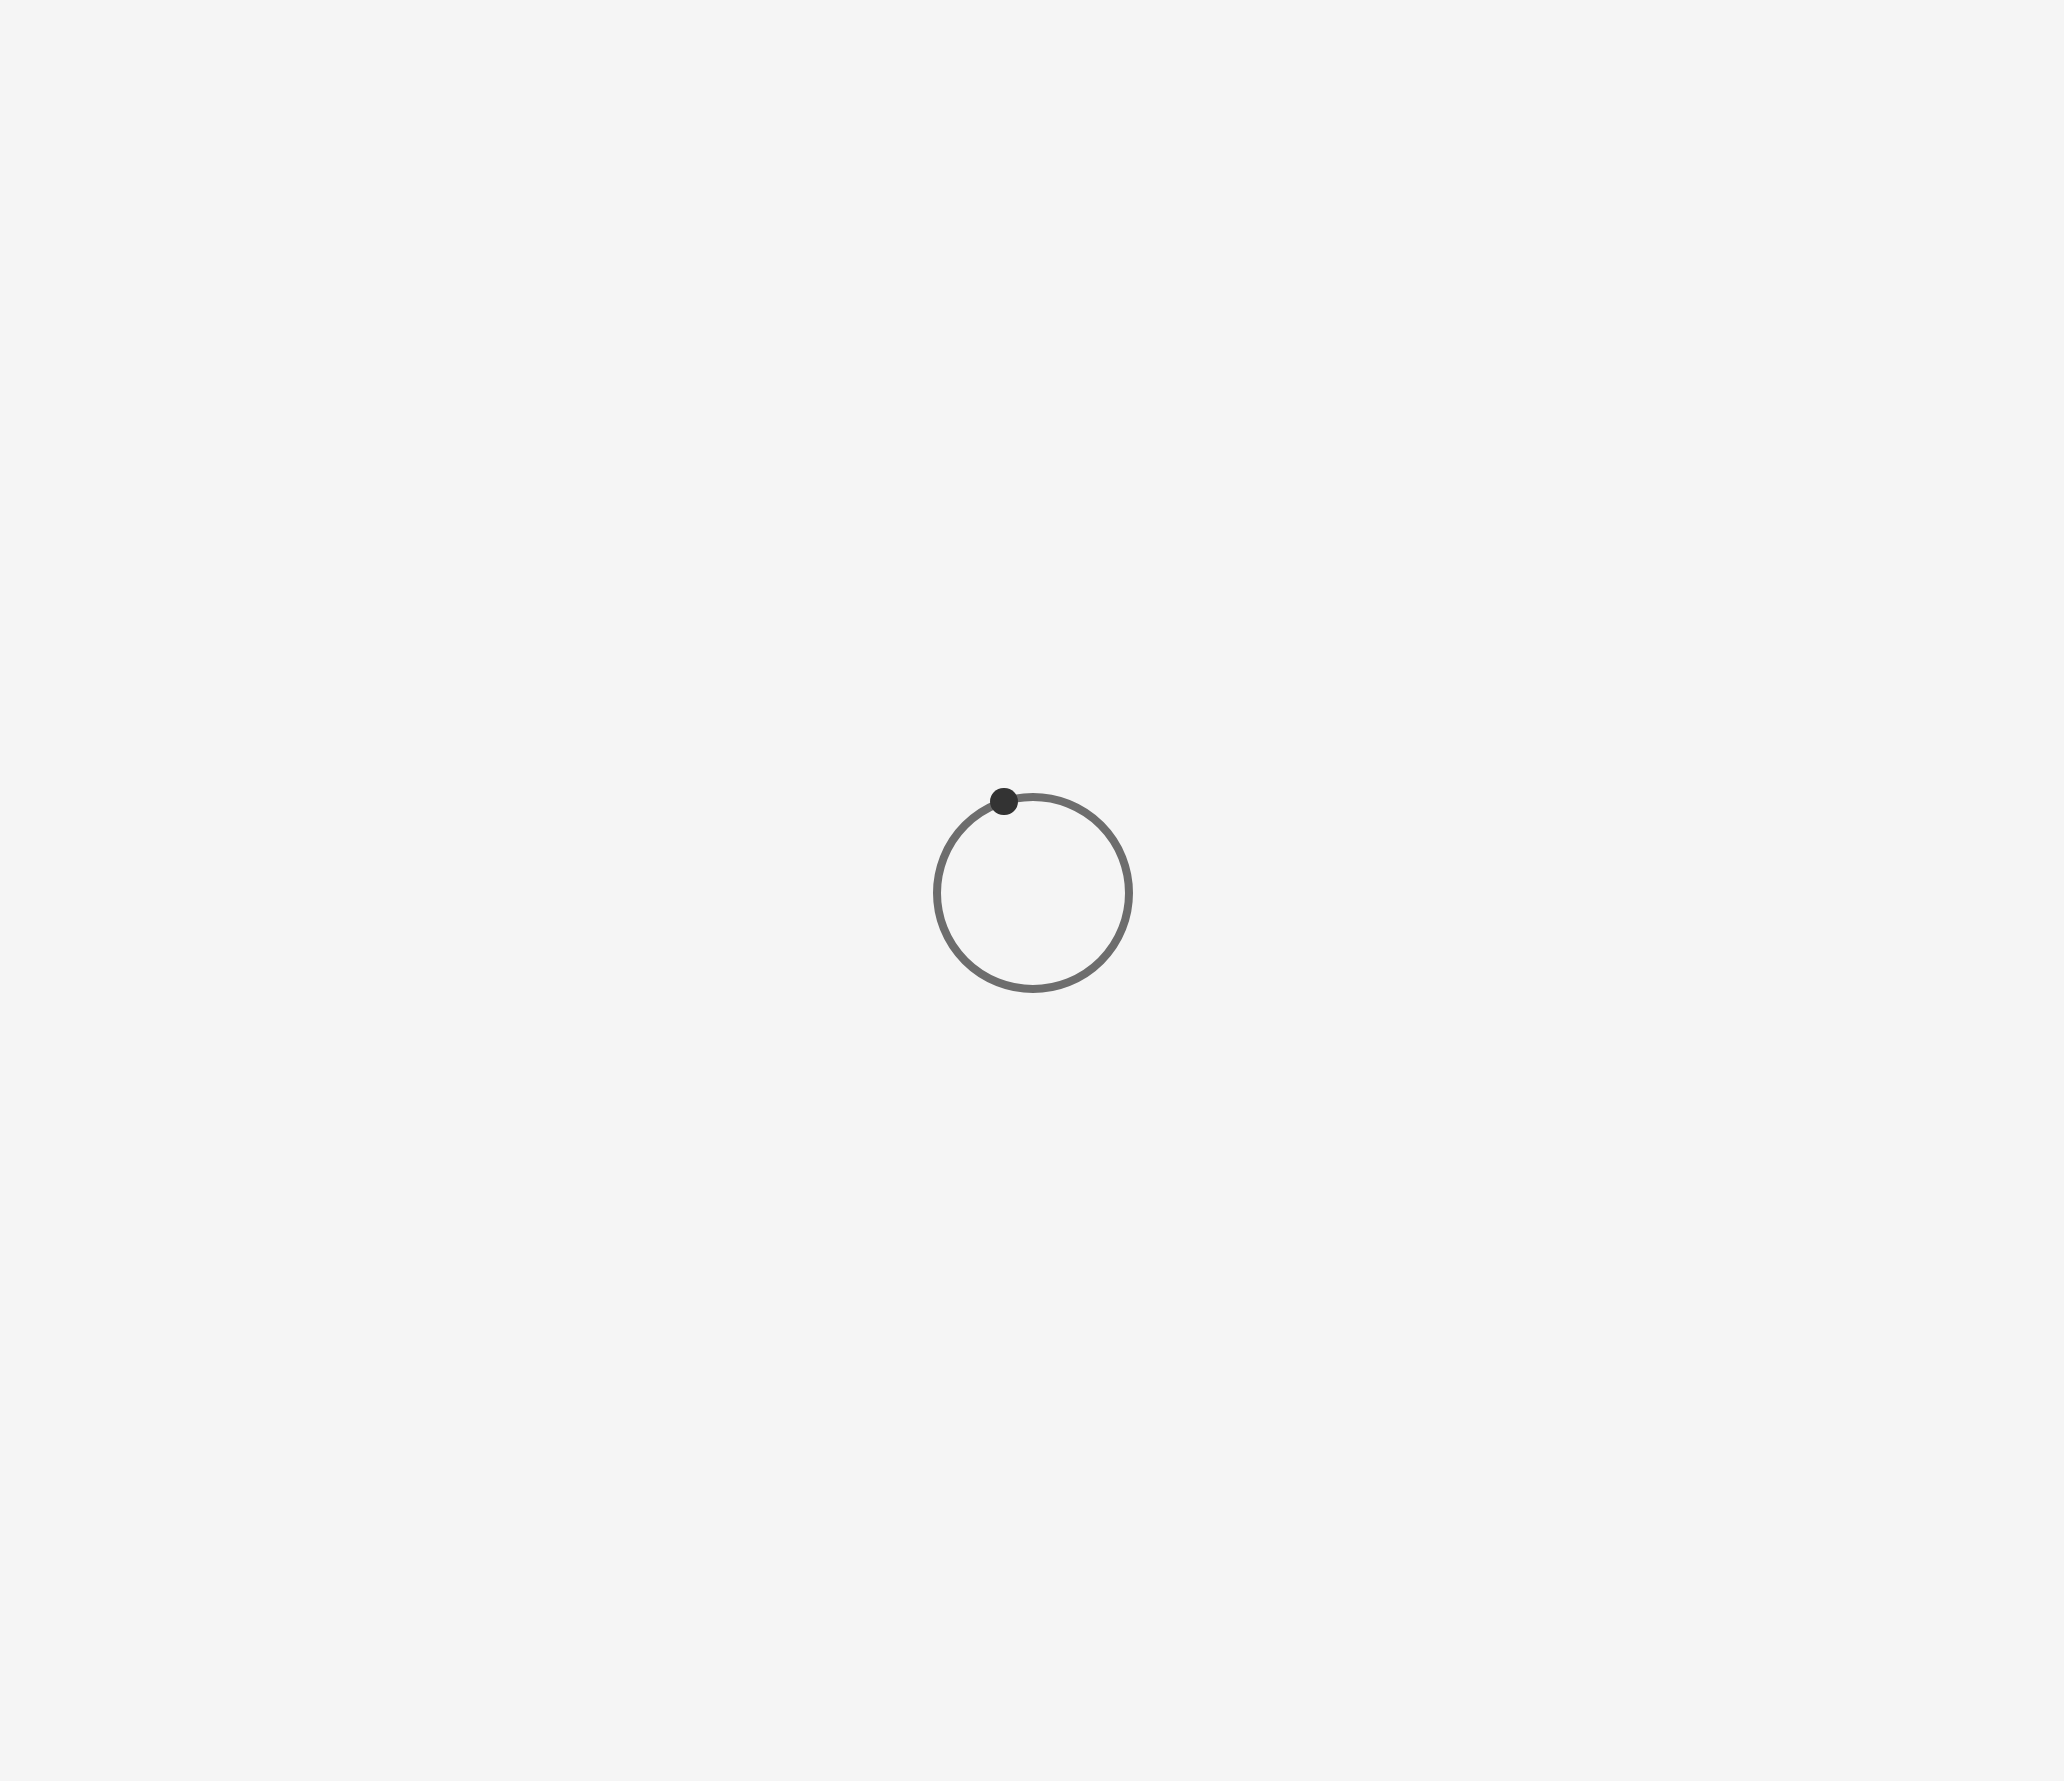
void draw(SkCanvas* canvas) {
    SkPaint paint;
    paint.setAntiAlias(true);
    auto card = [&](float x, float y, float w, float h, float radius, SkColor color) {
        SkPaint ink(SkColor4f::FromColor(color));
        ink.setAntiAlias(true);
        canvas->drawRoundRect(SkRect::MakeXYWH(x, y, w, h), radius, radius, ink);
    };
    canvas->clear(SkColorSetRGB(245, 245, 245));
    paint.setStyle(SkPaint::kStroke_Style);
    paint.setStrokeWidth(8);
    paint.setColor(SkColorSetRGB(109, 109, 109));
    canvas->drawCircle(1033, 893, 96, paint);
    card(990, 788, 28, 27, 13.5f, SkColorSetRGB(51, 51, 51));
}
